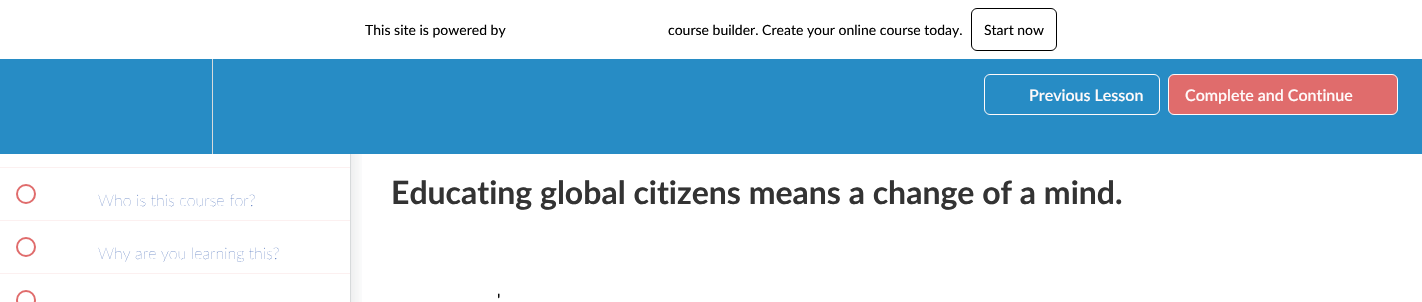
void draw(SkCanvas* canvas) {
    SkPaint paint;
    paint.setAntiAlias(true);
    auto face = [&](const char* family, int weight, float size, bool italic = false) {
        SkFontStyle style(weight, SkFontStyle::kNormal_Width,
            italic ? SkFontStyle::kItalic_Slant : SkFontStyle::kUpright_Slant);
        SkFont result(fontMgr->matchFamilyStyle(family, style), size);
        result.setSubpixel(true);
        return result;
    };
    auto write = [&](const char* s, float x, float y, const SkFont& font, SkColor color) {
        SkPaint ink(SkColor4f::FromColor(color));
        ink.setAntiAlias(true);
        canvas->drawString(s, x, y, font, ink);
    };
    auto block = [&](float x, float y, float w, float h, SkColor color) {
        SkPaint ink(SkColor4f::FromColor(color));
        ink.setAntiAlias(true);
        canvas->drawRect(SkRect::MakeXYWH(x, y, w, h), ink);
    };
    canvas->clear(SK_ColorWHITE);
    canvas->save();
    canvas->clipRect(SkRect::MakeXYWH(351, 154, 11, 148));
    paint.setColor(SkColorSetARGB(38, 32, 39, 45));
    paint.setMaskFilter(SkMaskFilter::MakeBlur(kNormal_SkBlurStyle, 10));
    canvas->drawRect(SkRect::MakeXYWH(0, 77, 351, 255), paint);
    paint.setMaskFilter(nullptr);
    canvas->restore();
    block(0, 59, 1422, 95, SkColorSetRGB(39, 140, 197));
    auto kFont1 = face("Lato", 400, 14);
    write("This site is powered by", 365, 35, kFont1, SK_ColorBLACK);
    write("course builder. Create your online course today.", 668, 35, kFont1, SK_ColorBLACK);
    paint.setStyle(SkPaint::kStroke_Style);
    paint.setStrokeWidth(1);
    paint.setColor(SK_ColorBLACK);
    canvas->drawRoundRect(SkRect::MakeXYWH(971.5f, 8.5f, 85, 42), 5.5f, 5.5f, paint);
    write("Start now", 984, 35, kFont1, SK_ColorBLACK);
    block(212, 59, 1, 95, SkColorSetRGB(215, 218, 219));
    paint.setColor(SkColorSetRGB(255, 250, 250));
    canvas->drawRoundRect(SkRect::MakeXYWH(984.5f, 74.5f, 175, 40), 5.5f, 5.5f, paint);
    auto kFont2 = face("Lato", 600, 16);
    write("Previous Lesson", 1029, 101, kFont2, SkColorSetRGB(255, 250, 250));
    paint.setStyle(SkPaint::kFill_Style);
    paint.setColor(SkColorSetRGB(224, 108, 108));
    canvas->drawRoundRect(SkRect::MakeXYWH(1168.5f, 74.5f, 229, 40), 5.5f, 5.5f, paint);
    paint.setStyle(SkPaint::kStroke_Style);
    paint.setColor(SkColorSetRGB(255, 250, 250));
    canvas->drawRoundRect(SkRect::MakeXYWH(1168.5f, 74.5f, 229, 40), 5.5f, 5.5f, paint);
    write("Complete and Continue", 1185, 101, kFont2, SkColorSetRGB(255, 250, 250));
    block(350, 154, 1, 148, SkColorSetRGB(215, 218, 219));
    block(0, 167, 350, 1, SkColorSetRGB(252, 240, 240));
    block(0, 220, 350, 1, SkColorSetRGB(252, 240, 240));
    paint.setStrokeWidth(2);
    paint.setColor(SkColorSetRGB(224, 108, 108));
    canvas->drawCircle(26, 194, 9, paint);
    auto kFont3 = face("Lato", 200, 16);
    write("Who is this course for?", 98, 206, kFont3, SkColorSetRGB(44, 87, 175));
    block(0, 273, 350, 1, SkColorSetRGB(252, 240, 240));
    canvas->drawCircle(26, 247, 9, paint);
    write("Why are you learning this?", 98, 259, kFont3, SkColorSetRGB(44, 87, 175));
    canvas->drawCircle(26, 300, 9, paint);
    auto kFont4 = face("Lato", 700, 32);
    write("Educating global citizens means a change of a mind.", 391, 204, kFont4, SkColorSetRGB(51, 51, 51));
    auto kFont5 = face("Lato", 400, 17);
    write("'", 497, 306, kFont5, SK_ColorBLACK);
}
